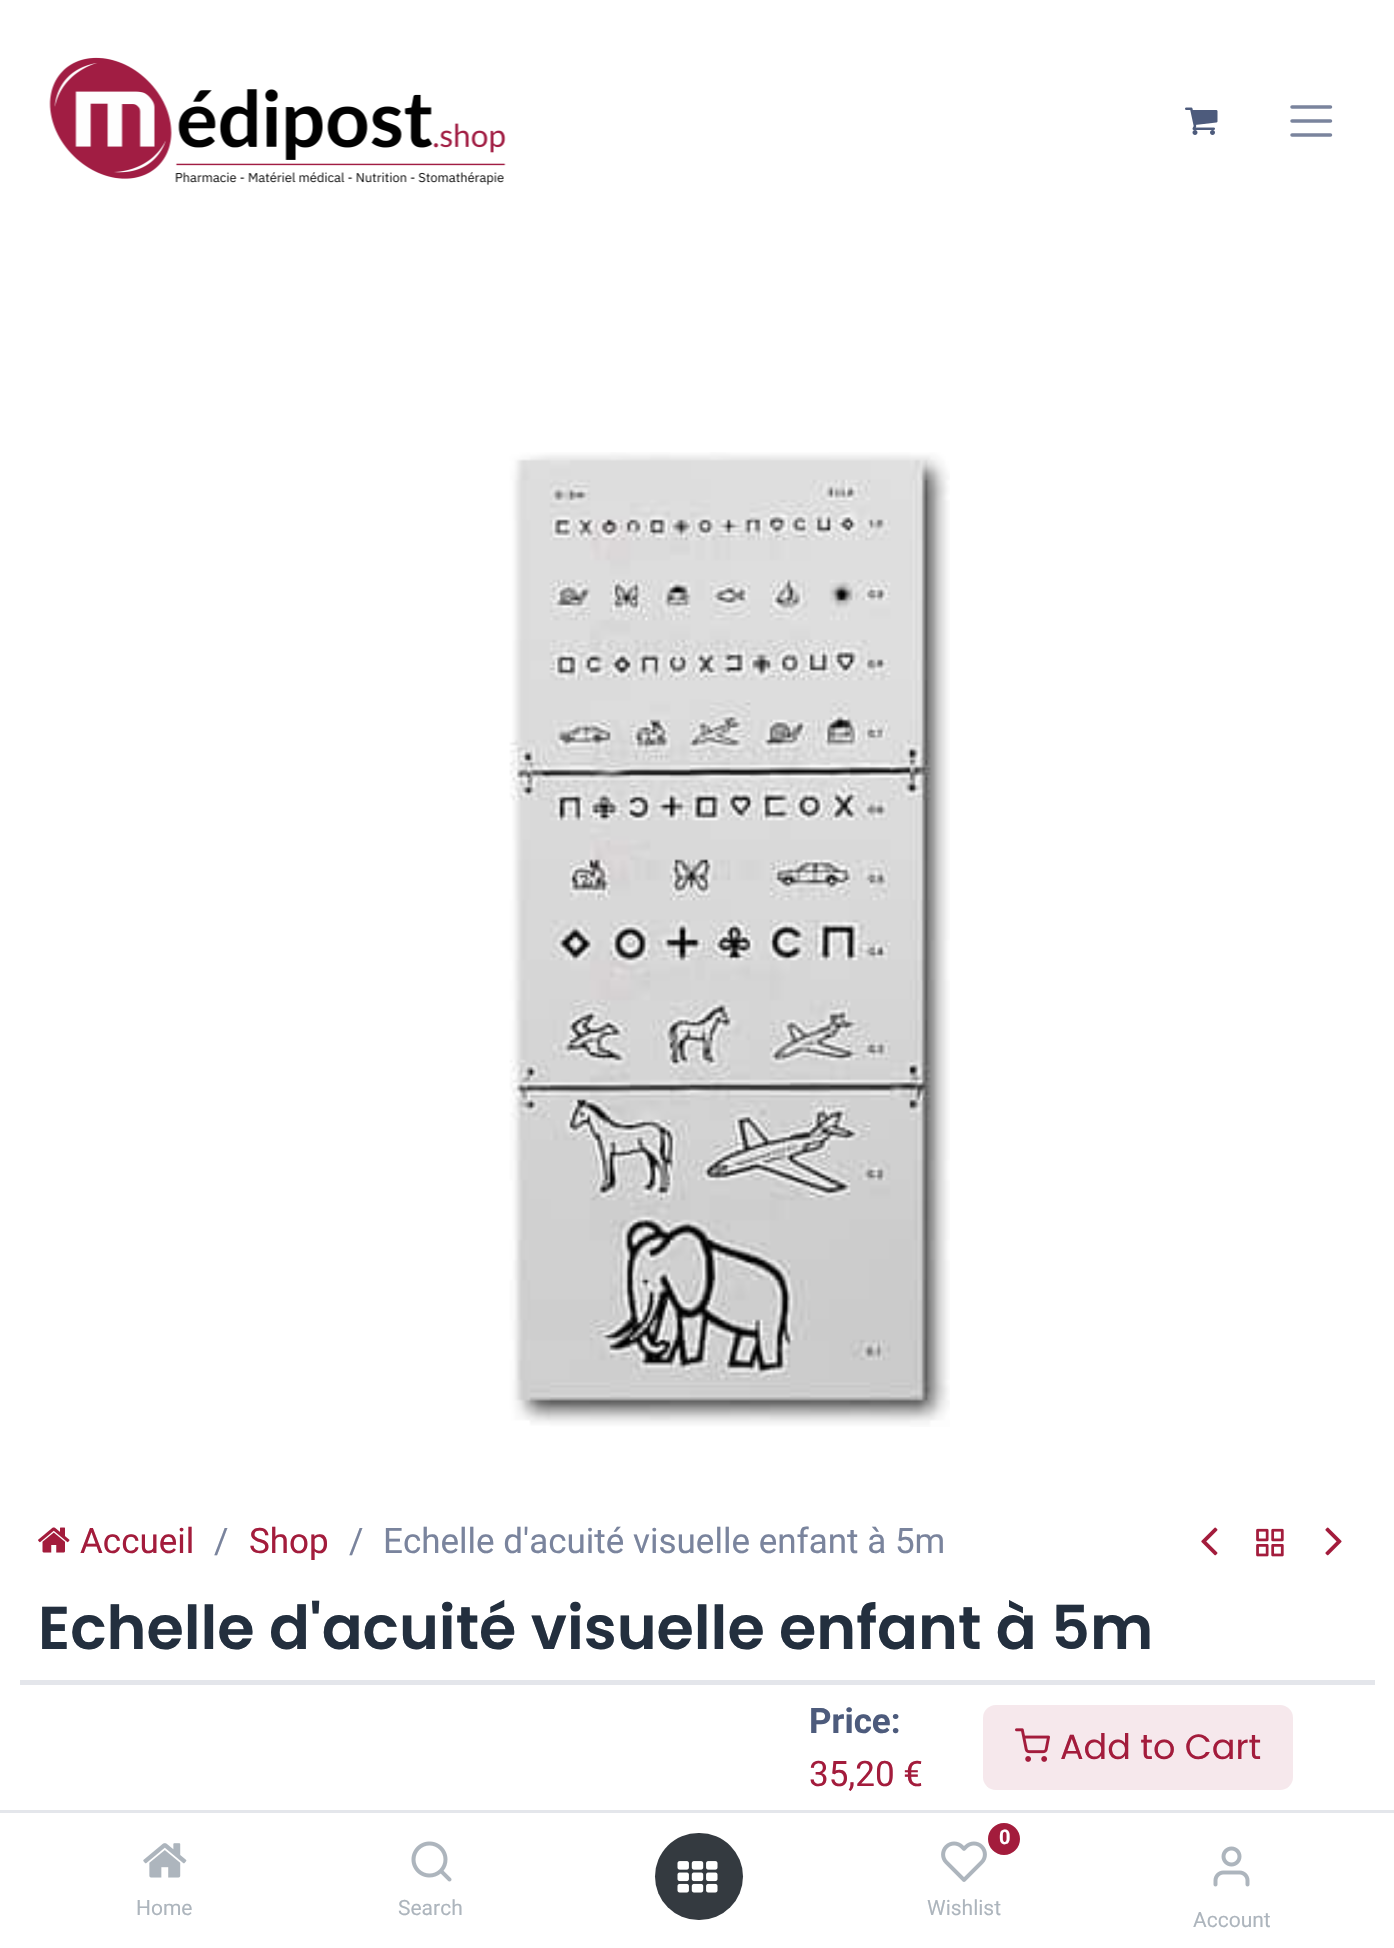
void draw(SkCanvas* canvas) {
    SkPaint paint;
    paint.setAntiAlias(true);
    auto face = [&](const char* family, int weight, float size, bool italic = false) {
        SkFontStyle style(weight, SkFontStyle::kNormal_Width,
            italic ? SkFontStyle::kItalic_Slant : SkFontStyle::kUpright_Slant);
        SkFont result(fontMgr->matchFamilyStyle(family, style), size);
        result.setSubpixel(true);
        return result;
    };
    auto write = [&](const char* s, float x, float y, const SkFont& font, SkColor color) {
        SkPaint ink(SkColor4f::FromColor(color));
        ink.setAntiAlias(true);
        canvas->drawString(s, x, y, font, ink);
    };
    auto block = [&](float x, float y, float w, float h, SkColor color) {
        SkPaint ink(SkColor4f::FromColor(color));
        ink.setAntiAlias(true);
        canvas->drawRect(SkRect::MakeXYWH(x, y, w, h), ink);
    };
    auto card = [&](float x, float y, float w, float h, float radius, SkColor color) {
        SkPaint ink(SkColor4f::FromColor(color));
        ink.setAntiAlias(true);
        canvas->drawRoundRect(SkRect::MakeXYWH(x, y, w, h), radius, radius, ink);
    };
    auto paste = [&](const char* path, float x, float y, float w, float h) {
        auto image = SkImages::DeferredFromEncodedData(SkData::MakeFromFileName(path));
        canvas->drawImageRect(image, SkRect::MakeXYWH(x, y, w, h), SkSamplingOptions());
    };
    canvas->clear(SK_ColorWHITE);
    paste("pic1.png", 49, 57, 457, 128);
    paste("pic2.png", 1185, 107, 33, 28);
    paint.setStyle(SkPaint::kStroke_Style);
    paint.setStrokeWidth(3.5f);
    paint.setStrokeCap(SkPaint::kRound_Cap);
    paint.setColor(SkColorSetRGB(122, 132, 157));
    canvas->drawPath(SkPathBuilder().moveTo(1292, 107).lineTo(1330.5f, 107).moveTo(1292, 121).lineTo(1330.5f, 121).moveTo(1292, 135).lineTo(1330.5f, 135).detach(), paint);
    paste("pic3.png", 509, 452, 441, 975);
    paste("pic4.png", 38, 1527, 32, 26);
    auto kFont1 = face("Roboto", 400, 35);
    write("Accueil", 80, 1553, kFont1, SkColorSetRGB(163, 28, 60));
    write("/", 214, 1553, kFont1, SkColorSetRGB(122, 132, 157));
    write("Shop", 249, 1553, kFont1, SkColorSetRGB(163, 28, 60));
    write("/", 349, 1553, kFont1, SkColorSetRGB(122, 132, 157));
    write("Echelle d'acuité visuelle enfant à 5m", 383, 1553, kFont1, SkColorSetRGB(122, 132, 157));
    paste("pic5.png", 1201, 1527, 17, 29);
    paste("pic6.png", 1256, 1528, 28, 29);
    paste("pic7.png", 1325, 1527, 17, 29);
    auto kFont2 = face("Poppins", 600, 60.4f);
    write("Echelle d'acuité visuelle enfant à 5m", 38, 1649, kFont2, SkColorSetRGB(35, 47, 62));
    block(20, 1680, 1355, 5, SkColorSetRGB(228, 230, 235));
    block(0, 1810, 1394, 3, SkColorSetRGB(228, 230, 235));
    auto kFont3 = face("Roboto", 700, 35);
    write("Price:", 809, 1733, kFont3, SkColorSetRGB(77, 91, 124));
    write("35,20 €", 809, 1786, kFont1, SkColorSetRGB(163, 28, 60));
    card(983, 1705, 310, 85, 13, SkColorSetRGB(246, 232, 236));
    paste("pic8.png", 1015, 1728, 35, 34);
    auto kFont4 = face("Poppins", 400, 35);
    write("Add to Cart", 1060, 1759, kFont4, SkColorSetRGB(163, 28, 60));
    paste("pic9.png", 143, 1843, 44, 35);
    auto kFont5 = face("Roboto", 400, 21);
    write("Home", 136, 1915, kFont5, SkColorSetRGB(173, 181, 189));
    paste("pic10.png", 411, 1841, 41, 41);
    write("Search", 398, 1915, kFont5, SkColorSetRGB(173, 181, 189));
    card(655, 1833, 88, 87, 43.5f, SkColorSetRGB(52, 58, 64));
    paste("pic11.png", 677, 1861, 41, 32);
    paint.setStyle(SkPaint::kFill_Style);
    paint.setColor(SkColorSetRGB(163, 28, 60));
    canvas->drawCircle(1004, 1839, 14.5f, paint);
    paint.setStyle(SkPaint::kStroke_Style);
    paint.setStrokeWidth(3);
    paint.setStrokeCap(SkPaint::kButt_Cap);
    canvas->drawCircle(1004, 1839, 14.5f, paint);
    auto kFont6 = face("Roboto", 700, 20);
    write("0", 999, 1844, kFont6, SK_ColorWHITE);
    paste("pic12.png", 941, 1841, 46, 41);
    write("Wishlist", 927, 1915, kFont5, SkColorSetRGB(173, 181, 189));
    paste("pic13.png", 1213, 1846, 37, 41);
    write("Account", 1193, 1927, kFont5, SkColorSetRGB(173, 181, 189));
}
